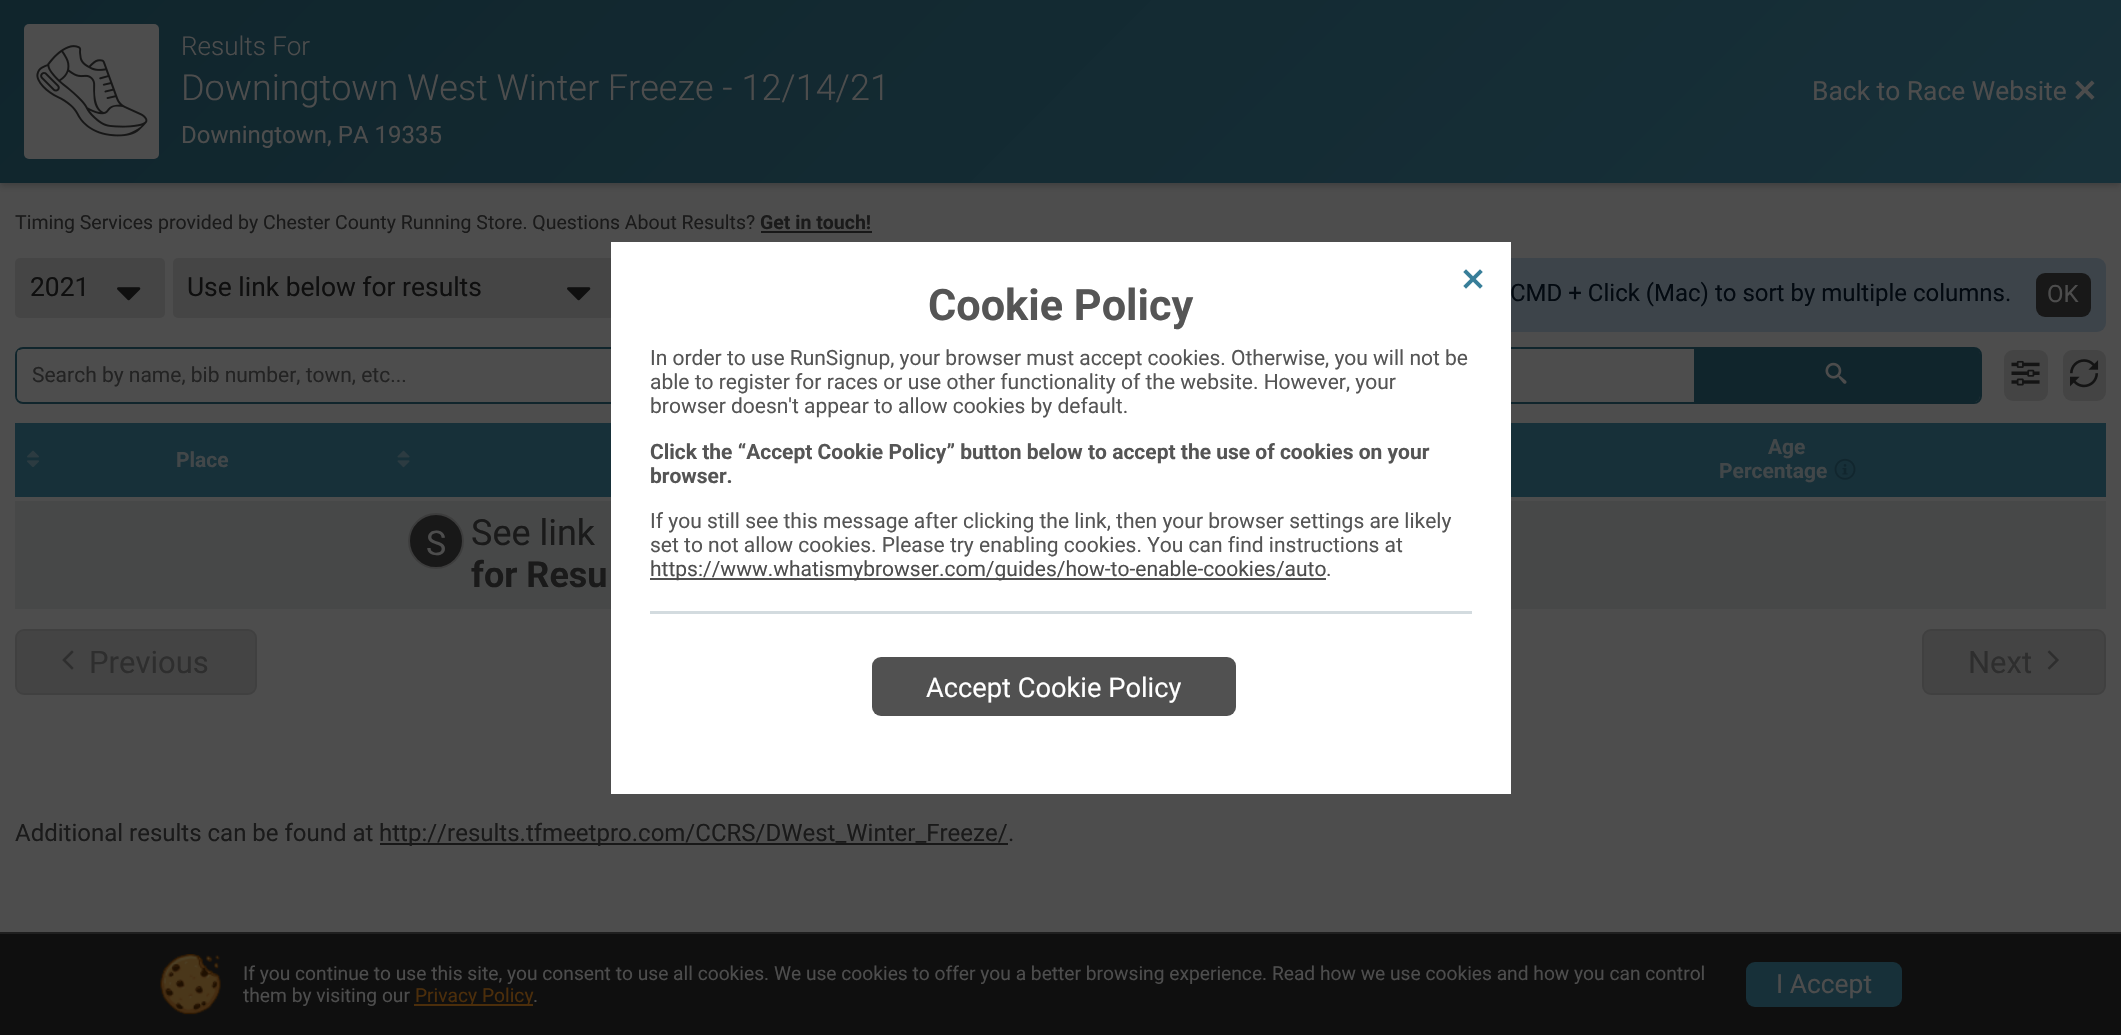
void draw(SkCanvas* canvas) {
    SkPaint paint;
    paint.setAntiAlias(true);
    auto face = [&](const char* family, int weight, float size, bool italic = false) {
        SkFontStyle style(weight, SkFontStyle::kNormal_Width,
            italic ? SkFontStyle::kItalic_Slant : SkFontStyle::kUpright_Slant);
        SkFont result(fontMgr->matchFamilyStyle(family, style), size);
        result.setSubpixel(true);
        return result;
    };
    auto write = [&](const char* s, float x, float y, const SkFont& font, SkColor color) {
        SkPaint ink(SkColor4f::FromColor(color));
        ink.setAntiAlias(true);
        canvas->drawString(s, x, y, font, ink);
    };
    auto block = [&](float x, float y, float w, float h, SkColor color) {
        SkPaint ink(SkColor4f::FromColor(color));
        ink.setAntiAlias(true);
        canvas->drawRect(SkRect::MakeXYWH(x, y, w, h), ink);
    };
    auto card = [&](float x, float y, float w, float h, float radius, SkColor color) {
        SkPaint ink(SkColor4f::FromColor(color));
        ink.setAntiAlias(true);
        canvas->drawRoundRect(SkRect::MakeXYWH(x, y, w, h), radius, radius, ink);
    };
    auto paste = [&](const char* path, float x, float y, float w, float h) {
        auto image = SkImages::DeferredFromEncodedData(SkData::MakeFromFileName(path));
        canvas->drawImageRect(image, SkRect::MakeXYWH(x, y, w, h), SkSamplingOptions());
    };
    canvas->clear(SkColorSetRGB(77, 77, 77));
    paint.setColor(SkColorSetARGB(46, 0, 0, 0));
    paint.setMaskFilter(SkMaskFilter::MakeBlur(kNormal_SkBlurStyle, 3));
    canvas->drawRect(SkRect::MakeXYWH(0, 3, 2121, 183), paint);
    paint.setMaskFilter(nullptr);
    {
        const SkColor colors[] = {SkColorSetRGB(23, 48, 57), SkColorSetRGB(16, 37, 44)};
        const float stops[] = {0, 1};
        const SkPoint ends[] = {{1637, 667}, {484, -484}};
        paint.setShader(SkGradientShader::MakeLinear(ends, colors, stops, 2, SkTileMode::kClamp));
        paint.setAlpha(255);
    }
    canvas->drawRect(SkRect::MakeXYWH(0, 0, 2121, 183), paint);
    card(24, 24, 135, 135, 5, SkColorSetRGB(77, 77, 77));
    paste("pic1.png", 36, 45, 112, 92);
    auto kFont1 = face("Roboto", 300, 26);
    write("Results For", 181, 55, kFont1, SkColorSetRGB(77, 77, 77));
    auto kFont2 = face("Roboto", 300, 36);
    write("Downingtown West Winter Freeze - 12/14/21", 181, 100, kFont2, SkColorSetRGB(77, 77, 77));
    auto kFont3 = face("Roboto", 400, 24);
    write("Downingtown, PA 19335", 181, 143, kFont3, SkColorSetRGB(77, 77, 77));
    auto kFont4 = face("Roboto", 400, 26.4f);
    write("Back to Race Website", 1812, 100, kFont4, SkColorSetRGB(77, 77, 77));
    paste("pic2.png", 2075, 80, 20, 20);
    auto kFont5 = face("Roboto", 400, 19.5f);
    write("Timing Services provided by Chester County Running Store. Questions About Results?", 15, 229, kFont5, SkColorSetRGB(26, 26, 26));
    auto kFont6 = face("Roboto", 700, 19.5f);
    write("Get in touch!", 760, 229, kFont6, SkColorSetRGB(26, 26, 26));
    block(761, 231, 111, 2, SkColorSetRGB(24, 24, 24));
    card(15, 258, 150, 60, 5, SkColorSetRGB(69, 69, 69));
    write("2021", 30, 296, kFont4, SkColorSetRGB(15, 15, 15));
    paste("pic3.png", 117, 287, 24, 14);
    card(173, 258, 442, 60, 5, SkColorSetRGB(69, 69, 69));
    write("Use link below for results", 187, 296, kFont4, SkColorSetRGB(15, 15, 15));
    paste("pic3.png", 567, 287, 24, 14);
    card(1179, 258, 927, 74, 9, SkColorSetRGB(61, 68, 74));
    write("CMD + Click (Mac) to sort by multiple columns.", 1510, 301, kFont3, SkColorSetRGB(3, 10, 17));
    card(2036, 273, 55, 44, 9, SkColorSetRGB(24, 24, 24));
    write("OK", 2047, 302, kFont3, SkColorSetRGB(77, 77, 77));
    paint.setStyle(SkPaint::kStroke_Style);
    paint.setStrokeWidth(2);
    paint.setShader(nullptr);
    paint.setColor(SkColorSetRGB(16, 37, 44));
    canvas->drawRoundRect(SkRect::MakeXYWH(16, 348, 1965, 55), 7, 7, paint);
    canvas->save();
    canvas->clipPath(SkPathBuilder().moveTo(23, 348).lineTo(1974, 348).cubicTo(1977.5f, 348, 1980, 350.5f, 1980, 354).lineTo(1980, 396).cubicTo(1980, 399.5f, 1977.5f, 402, 1974, 402).lineTo(23, 402).cubicTo(19.5f, 402, 17, 399.5f, 17, 396).lineTo(17, 354).cubicTo(17, 350.5f, 19.5f, 348, 23, 348).close().detach(), true);
    block(17, 350, 1677, 51, SkColorSetRGB(77, 77, 77));
    canvas->restore();
    auto kFont7 = face("Roboto", 400, 21);
    write("Search by name, bib number, town, etc...", 32, 382, kFont7, SkColorSetRGB(35, 35, 35));
    paint.setStyle(SkPaint::kFill_Style);
    canvas->drawPath(SkPathBuilder().moveTo(1694, 348).lineTo(1974, 348).cubicTo(1977.5f, 348, 1980, 350.5f, 1980, 354).lineTo(1980, 396).cubicTo(1980, 399.5f, 1977.5f, 402, 1974, 402).lineTo(1694, 402).close().detach(), paint);
    paste("pic4.png", 1825, 362, 22, 22);
    card(2004, 350, 44, 51, 9, SkColorSetRGB(68, 68, 68));
    paste("pic5.png", 2011, 360, 29, 26);
    card(2063, 350, 43, 51, 9, SkColorSetRGB(68, 68, 68));
    paste("pic6.png", 2070, 359, 29, 29);
    block(15, 423, 2091, 74, SkColorSetRGB(23, 48, 57));
    paste("pic7.png", 27, 450, 12, 17);
    auto kFont8 = face("Roboto", 700, 21);
    write("Place", 176, 467, kFont8, SkColorSetRGB(66, 71, 73));
    paste("pic8.png", 397, 450, 13, 18);
    write("Age", 1768, 454, kFont8, SkColorSetRGB(66, 71, 73));
    write("Percentage", 1719, 478, kFont8, SkColorSetRGB(66, 71, 73));
    paste("pic9.png", 1834, 458, 22, 22);
    block(15, 501, 2091, 108, SkColorSetRGB(71, 72, 72));
    paint.setColor(SkColorSetRGB(24, 24, 24));
    canvas->drawCircle(436, 541, 27, paint);
    paint.setStyle(SkPaint::kStroke_Style);
    paint.setColor(SkColorSetRGB(61, 61, 61));
    canvas->drawCircle(436, 541, 27, paint);
    auto kFont9 = face("Roboto", 400, 34);
    write("S", 426, 555, kFont9, SkColorSetRGB(77, 77, 77));
    auto kFont10 = face("Roboto", 400, 36);
    write("See link", 471, 545, kFont10, SkColorSetRGB(26, 26, 26));
    auto kFont11 = face("Roboto", 700, 36);
    write("for Resu", 471, 587, kFont11, SkColorSetRGB(26, 26, 26));
    paint.setStyle(SkPaint::kFill_Style);
    paint.setColor(SkColorSetRGB(68, 68, 68));
    canvas->drawRoundRect(SkRect::MakeXYWH(16, 630, 240, 64), 8, 8, paint);
    paint.setStyle(SkPaint::kStroke_Style);
    paint.setColor(SkColorSetRGB(64, 64, 64));
    canvas->drawRoundRect(SkRect::MakeXYWH(16, 630, 240, 64), 8, 8, paint);
    paste("pic10.png", 62, 650, 12, 20);
    auto kFont12 = face("Roboto", 400, 31);
    write("Previous", 89, 673, kFont12, SkColorSetRGB(46, 46, 46));
    paint.setStyle(SkPaint::kFill_Style);
    paint.setColor(SkColorSetRGB(68, 68, 68));
    canvas->drawRoundRect(SkRect::MakeXYWH(1923, 630, 182, 64), 8, 8, paint);
    paint.setStyle(SkPaint::kStroke_Style);
    paint.setColor(SkColorSetRGB(64, 64, 64));
    canvas->drawRoundRect(SkRect::MakeXYWH(1923, 630, 182, 64), 8, 8, paint);
    write("Next", 1968, 673, kFont12, SkColorSetRGB(46, 46, 46));
    paste("pic11.png", 2047, 650, 12, 20);
    write("Additional results can be found at", 15, 841, kFont3, SkColorSetRGB(26, 26, 26));
    block(380, 843, 628, 2, SkColorSetRGB(24, 24, 24));
    write("http://results.tfmeetpro.com/CCRS/DWest_Winter_Freeze/", 379, 841, kFont3, SkColorSetRGB(26, 26, 26));
    write(".", 1008, 841, kFont3, SkColorSetRGB(26, 26, 26));
    paint.setColor(SK_ColorWHITE);
    canvas->drawRect(SkRect::MakeXYWH(612, 243, 898, 550), paint);
    block(613, 244, 896, 548, SK_ColorWHITE);
    paste("pic12.png", 1463, 269, 20, 20);
    auto kFont13 = face("Roboto", 700, 43.25f);
    write("Cookie Policy", 928, 320, kFont13, SkColorSetRGB(85, 85, 85));
    write("In order to use RunSignup, your browser must accept cookies. Otherwise, you will not be", 650, 365, kFont7, SkColorSetRGB(85, 85, 85));
    write("able to register for races or use other functionality of the website. However, your", 650, 389, kFont7, SkColorSetRGB(85, 85, 85));
    write("browser doesn't appear to allow cookies by default.", 650, 413, kFont7, SkColorSetRGB(85, 85, 85));
    write("Click the “Accept Cookie Policy” button below to accept the use of cookies on your", 650, 459, kFont8, SkColorSetRGB(85, 85, 85));
    write("browser.", 650, 483, kFont8, SkColorSetRGB(85, 85, 85));
    write("If you still see this message after clicking the link, then your browser settings are likely", 650, 528, kFont7, SkColorSetRGB(85, 85, 85));
    write("set to not allow cookies. Please try enabling cookies. You can find instructions at", 650, 552, kFont7, SkColorSetRGB(85, 85, 85));
    block(650, 578, 676, 2, SkColorSetRGB(81, 81, 81));
    write("https://www.whatismybrowser.com/guides/how-to-enable-cookies/auto", 650, 576, kFont7, SkColorSetRGB(77, 77, 77));
    write(".", 1326, 576, kFont7, SkColorSetRGB(85, 85, 85));
    block(650, 611, 822, 3, SkColorSetRGB(211, 219, 223));
    card(872, 657, 364, 59, 9, SkColorSetRGB(81, 81, 81));
    auto kFont14 = face("Roboto", 400, 27.25f);
    write("Accept Cookie Policy", 926, 697, kFont14, SK_ColorWHITE);
    block(0, 934, 2121, 101, SkColorSetRGB(15, 15, 15));
    block(0, 932, 2121, 2, SkColorSetRGB(31, 31, 31));
    paste("pic13.png", 160, 954, 61, 61);
    auto kFont15 = face("Roboto", 400, 19.2f);
    write("If you continue to use this site, you consent to use all cookies. We use cookies to offer you a better browsing experience. Read how we use cookies and how you can control", 243, 980, kFont15, SkColorSetRGB(77, 77, 77));
    write("them by visiting our", 243, 1002, kFont15, SkColorSetRGB(77, 77, 77));
    block(414, 1004, 119, 2, SkColorSetRGB(76, 46, 11));
    write("Privacy Policy", 415, 1002, kFont15, SkColorSetRGB(76, 46, 11));
    write(".", 533, 1002, kFont15, SkColorSetRGB(77, 77, 77));
    card(1746, 962, 156, 45, 9, SkColorSetRGB(23, 48, 57));
    write("I Accept", 1776, 993, kFont4, SkColorSetRGB(77, 77, 77));
}
